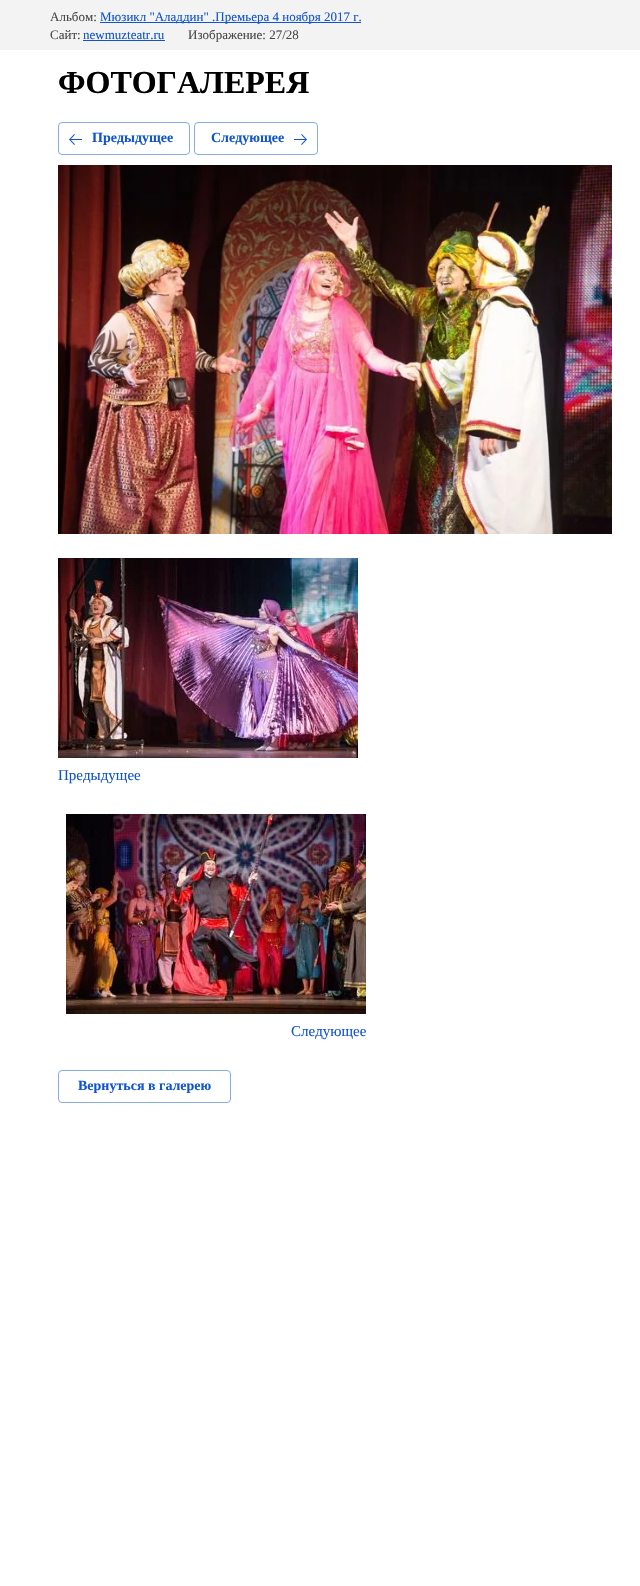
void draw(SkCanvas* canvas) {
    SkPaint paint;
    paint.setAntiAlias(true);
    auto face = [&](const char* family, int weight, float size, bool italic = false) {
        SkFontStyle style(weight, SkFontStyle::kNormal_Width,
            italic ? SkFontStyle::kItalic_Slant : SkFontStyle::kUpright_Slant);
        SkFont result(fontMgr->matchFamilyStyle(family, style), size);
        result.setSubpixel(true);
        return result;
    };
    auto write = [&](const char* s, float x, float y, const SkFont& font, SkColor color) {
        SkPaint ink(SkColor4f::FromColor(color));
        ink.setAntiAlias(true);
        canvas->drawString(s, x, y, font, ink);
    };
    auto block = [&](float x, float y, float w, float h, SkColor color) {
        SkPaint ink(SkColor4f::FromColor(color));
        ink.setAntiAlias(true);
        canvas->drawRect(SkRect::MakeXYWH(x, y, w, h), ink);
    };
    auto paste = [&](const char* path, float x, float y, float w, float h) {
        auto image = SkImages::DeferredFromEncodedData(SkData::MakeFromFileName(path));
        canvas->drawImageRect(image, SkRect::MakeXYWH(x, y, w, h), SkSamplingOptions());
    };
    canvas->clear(SK_ColorWHITE);
    block(0, 0, 640, 50, SkColorSetRGB(243, 243, 243));
    auto kFont1 = face("Liberation Serif", 400, 13);
    write("Альбом:", 50, 21, kFont1, SkColorSetRGB(72, 72, 72));
    block(100, 22, 261, 1, SkColorSetRGB(17, 85, 204));
    write("Мюзикл \"Аладдин\" .Премьера 4 ноября 2017 г.", 100, 21, kFont1, SkColorSetRGB(17, 85, 204));
    write("Сайт:", 50, 39, kFont1, SkColorSetRGB(72, 72, 72));
    write("newmuzteatr.ru", 83, 39, kFont1, SkColorSetRGB(17, 85, 204));
    block(83, 40, 82, 1, SkColorSetRGB(17, 85, 204));
    write("Изображение: 27/28", 188, 39, kFont1, SkColorSetRGB(72, 72, 72));
    auto kFont2 = face("Liberation Serif", 700, 32);
    write("ФОТОГАЛЕРЕЯ", 58, 93, kFont2, SK_ColorBLACK);
    paint.setStyle(SkPaint::kStroke_Style);
    paint.setStrokeWidth(1);
    paint.setColor(SkColorSetRGB(136, 170, 230));
    canvas->drawRoundRect(SkRect::MakeXYWH(58.5f, 122.5f, 131, 32), 3.5f, 3.5f, paint);
    paste("pic1.png", 69, 134, 13, 11);
    auto kFont3 = face("Liberation Serif", 700, 14);
    write("Предыдущее", 92, 142, kFont3, SkColorSetRGB(17, 85, 204));
    canvas->drawRoundRect(SkRect::MakeXYWH(194.5f, 122.5f, 123, 32), 3.5f, 3.5f, paint);
    write("Следующее", 211, 142, kFont3, SkColorSetRGB(17, 85, 204));
    paste("pic2.png", 294, 134, 13, 11);
    paste("pic3.png", 58, 165, 554, 369);
    paste("pic4.png", 58, 558, 300, 200);
    auto kFont4 = face("Liberation Serif", 400, 15);
    write("Предыдущее", 58, 780, kFont4, SkColorSetRGB(17, 85, 204));
    paste("pic5.png", 66, 814, 300, 200);
    write("Следующее", 291, 1036, kFont4, SkColorSetRGB(17, 85, 204));
    canvas->drawRoundRect(SkRect::MakeXYWH(58.5f, 1070.5f, 172, 32), 3.5f, 3.5f, paint);
    write("Вернуться в галерею", 78, 1090, kFont3, SkColorSetRGB(17, 85, 204));
}
